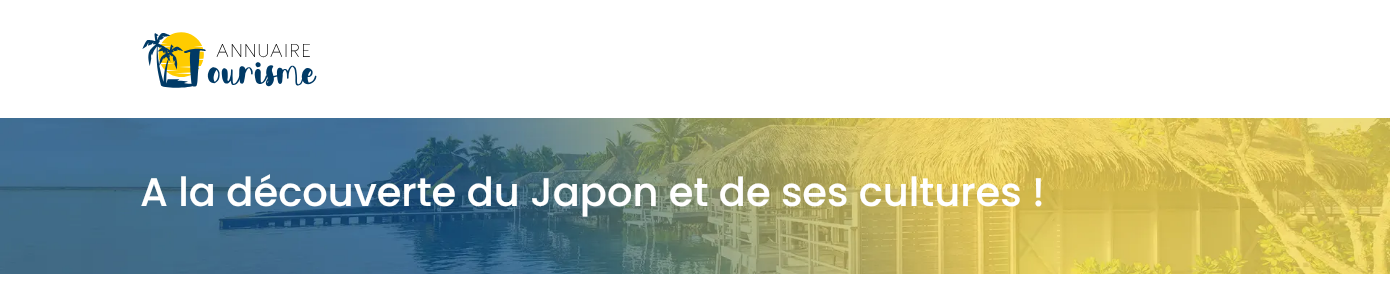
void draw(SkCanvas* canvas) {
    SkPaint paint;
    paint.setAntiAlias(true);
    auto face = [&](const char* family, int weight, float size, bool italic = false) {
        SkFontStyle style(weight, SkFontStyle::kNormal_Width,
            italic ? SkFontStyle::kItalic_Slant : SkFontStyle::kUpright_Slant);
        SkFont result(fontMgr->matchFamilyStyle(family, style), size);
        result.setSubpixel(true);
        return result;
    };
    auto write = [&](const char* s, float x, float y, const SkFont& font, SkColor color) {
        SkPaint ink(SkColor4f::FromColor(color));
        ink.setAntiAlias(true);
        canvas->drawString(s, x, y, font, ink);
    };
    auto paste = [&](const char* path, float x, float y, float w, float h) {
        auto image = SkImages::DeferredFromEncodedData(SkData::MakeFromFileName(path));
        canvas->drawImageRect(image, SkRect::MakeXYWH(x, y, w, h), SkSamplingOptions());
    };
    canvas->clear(SK_ColorWHITE);
    paste("pic1.png", 142, 32, 175, 56);
    paste("pic2.png", 0, 118, 1390, 156);
    auto kFont1 = face("Poppins", 500, 40);
    write("A la découverte du Japon et de ses cultures !", 140, 206, kFont1, SK_ColorWHITE);
}
